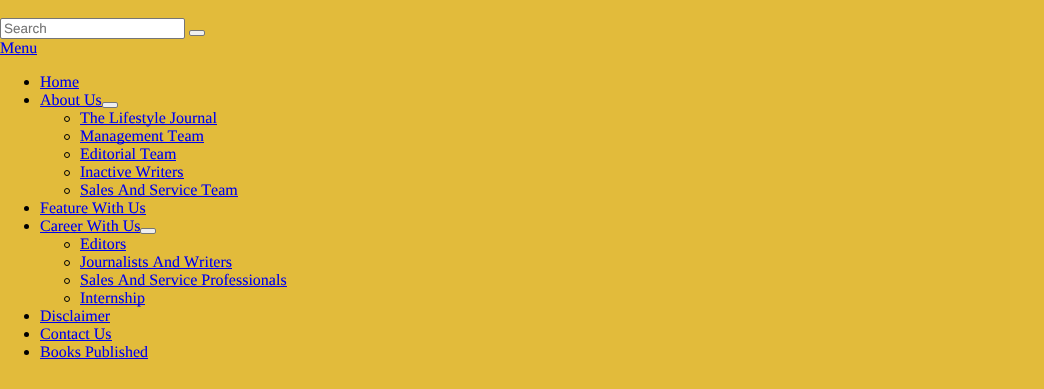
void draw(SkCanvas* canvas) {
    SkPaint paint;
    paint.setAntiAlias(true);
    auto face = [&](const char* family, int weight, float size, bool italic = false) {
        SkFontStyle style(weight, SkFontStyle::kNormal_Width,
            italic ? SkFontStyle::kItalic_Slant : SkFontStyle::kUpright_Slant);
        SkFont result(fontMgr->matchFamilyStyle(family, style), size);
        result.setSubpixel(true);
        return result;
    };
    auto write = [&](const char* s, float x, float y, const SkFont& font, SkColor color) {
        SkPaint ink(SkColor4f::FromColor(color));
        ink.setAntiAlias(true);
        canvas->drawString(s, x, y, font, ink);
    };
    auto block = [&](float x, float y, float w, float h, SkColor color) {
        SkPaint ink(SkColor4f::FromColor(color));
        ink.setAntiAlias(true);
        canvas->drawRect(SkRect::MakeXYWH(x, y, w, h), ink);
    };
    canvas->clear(SkColorSetRGB(226, 187, 59));
    paint.setColor(SK_ColorWHITE);
    canvas->drawRoundRect(SkRect::MakeXYWH(0.5f, 18.5f, 184, 20), 1.5f, 1.5f, paint);
    paint.setStyle(SkPaint::kStroke_Style);
    paint.setStrokeWidth(1);
    paint.setColor(SkColorSetRGB(118, 118, 118));
    canvas->drawRoundRect(SkRect::MakeXYWH(0.5f, 18.5f, 184, 20), 1.5f, 1.5f, paint);
    auto kFont1 = face("Liberation Sans", 400, 13.5f);
    write("Search", 4, 33, kFont1, SkColorSetRGB(117, 117, 117));
    paint.setStyle(SkPaint::kFill_Style);
    paint.setColor(SkColorSetRGB(239, 239, 239));
    canvas->drawRoundRect(SkRect::MakeXYWH(189.5f, 30.5f, 15, 5), 1.5f, 1.5f, paint);
    paint.setStyle(SkPaint::kStroke_Style);
    paint.setColor(SkColorSetRGB(118, 118, 118));
    canvas->drawRoundRect(SkRect::MakeXYWH(189.5f, 30.5f, 15, 5), 1.5f, 1.5f, paint);
    auto kFont2 = face("Liberation Serif", 400, 16);
    write("Menu", 0, 53, kFont2, SkColorSetRGB(0, 0, 238));
    block(0, 54, 37, 1, SkColorSetRGB(0, 0, 238));
    paint.setStyle(SkPaint::kFill_Style);
    paint.setColor(SK_ColorBLACK);
    canvas->drawCircle(26.5f, 82.5f, 2.5f, paint);
    write("Home", 40, 87, kFont2, SkColorSetRGB(0, 0, 238));
    block(40, 88, 39, 1, SkColorSetRGB(0, 0, 238));
    canvas->drawCircle(26.5f, 100.5f, 2.5f, paint);
    write("About Us", 40, 105, kFont2, SkColorSetRGB(0, 0, 238));
    block(40, 106, 62, 1, SkColorSetRGB(0, 0, 238));
    paint.setColor(SkColorSetRGB(239, 239, 239));
    canvas->drawRoundRect(SkRect::MakeXYWH(102.5f, 102.5f, 15, 5), 1.5f, 1.5f, paint);
    paint.setStyle(SkPaint::kStroke_Style);
    paint.setColor(SkColorSetRGB(118, 118, 118));
    canvas->drawRoundRect(SkRect::MakeXYWH(102.5f, 102.5f, 15, 5), 1.5f, 1.5f, paint);
    paint.setColor(SK_ColorBLACK);
    canvas->drawCircle(67, 119, 2.5f, paint);
    block(80, 124, 137, 1, SkColorSetRGB(0, 0, 238));
    write("The Lifestyle Journal", 80, 123, kFont2, SkColorSetRGB(0, 0, 238));
    canvas->drawCircle(67, 137, 2.5f, paint);
    block(80, 142, 124, 1, SkColorSetRGB(0, 0, 238));
    write("Management Team", 80, 141, kFont2, SkColorSetRGB(0, 0, 238));
    canvas->drawCircle(67, 155, 2.5f, paint);
    write("Editorial Team", 80, 159, kFont2, SkColorSetRGB(0, 0, 238));
    block(80, 160, 96, 1, SkColorSetRGB(0, 0, 238));
    canvas->drawCircle(67, 173, 2.5f, paint);
    write("Inactive Writers", 80, 177, kFont2, SkColorSetRGB(0, 0, 238));
    block(80, 178, 104, 1, SkColorSetRGB(0, 0, 238));
    canvas->drawCircle(67, 191, 2.5f, paint);
    write("Sales And Service Team", 80, 195, kFont2, SkColorSetRGB(0, 0, 238));
    block(80, 196, 158, 1, SkColorSetRGB(0, 0, 238));
    paint.setStyle(SkPaint::kFill_Style);
    canvas->drawCircle(26.5f, 208.5f, 2.5f, paint);
    write("Feature With Us", 40, 213, kFont2, SkColorSetRGB(0, 0, 238));
    block(40, 214, 106, 1, SkColorSetRGB(0, 0, 238));
    canvas->drawCircle(26.5f, 226.5f, 2.5f, paint);
    write("Career With Us", 40, 231, kFont2, SkColorSetRGB(0, 0, 238));
    block(40, 232, 100, 1, SkColorSetRGB(0, 0, 238));
    paint.setColor(SkColorSetRGB(239, 239, 239));
    canvas->drawRoundRect(SkRect::MakeXYWH(140.5f, 228.5f, 15, 5), 1.5f, 1.5f, paint);
    paint.setStyle(SkPaint::kStroke_Style);
    paint.setColor(SkColorSetRGB(118, 118, 118));
    canvas->drawRoundRect(SkRect::MakeXYWH(140.5f, 228.5f, 15, 5), 1.5f, 1.5f, paint);
    paint.setColor(SK_ColorBLACK);
    canvas->drawCircle(67, 245, 2.5f, paint);
    write("Editors", 80, 249, kFont2, SkColorSetRGB(0, 0, 238));
    block(80, 250, 46, 1, SkColorSetRGB(0, 0, 238));
    canvas->drawCircle(67, 263, 2.5f, paint);
    write("Journalists And Writers", 80, 267, kFont2, SkColorSetRGB(0, 0, 238));
    block(80, 268, 152, 1, SkColorSetRGB(0, 0, 238));
    canvas->drawCircle(67, 281, 2.5f, paint);
    write("Sales And Service Professionals", 80, 285, kFont2, SkColorSetRGB(0, 0, 238));
    block(80, 286, 207, 1, SkColorSetRGB(0, 0, 238));
    canvas->drawCircle(67, 299, 2.5f, paint);
    block(80, 304, 65, 1, SkColorSetRGB(0, 0, 238));
    write("Internship", 80, 303, kFont2, SkColorSetRGB(0, 0, 238));
    paint.setStyle(SkPaint::kFill_Style);
    canvas->drawCircle(26.5f, 316.5f, 2.5f, paint);
    write("Disclaimer", 40, 321, kFont2, SkColorSetRGB(0, 0, 238));
    block(40, 322, 70, 1, SkColorSetRGB(0, 0, 238));
    canvas->drawCircle(26.5f, 334.5f, 2.5f, paint);
    write("Contact Us", 40, 339, kFont2, SkColorSetRGB(0, 0, 238));
    block(40, 340, 72, 1, SkColorSetRGB(0, 0, 238));
    canvas->drawCircle(26.5f, 352.5f, 2.5f, paint);
    write("Books Published", 40, 357, kFont2, SkColorSetRGB(0, 0, 238));
    block(40, 358, 108, 1, SkColorSetRGB(0, 0, 238));
}
